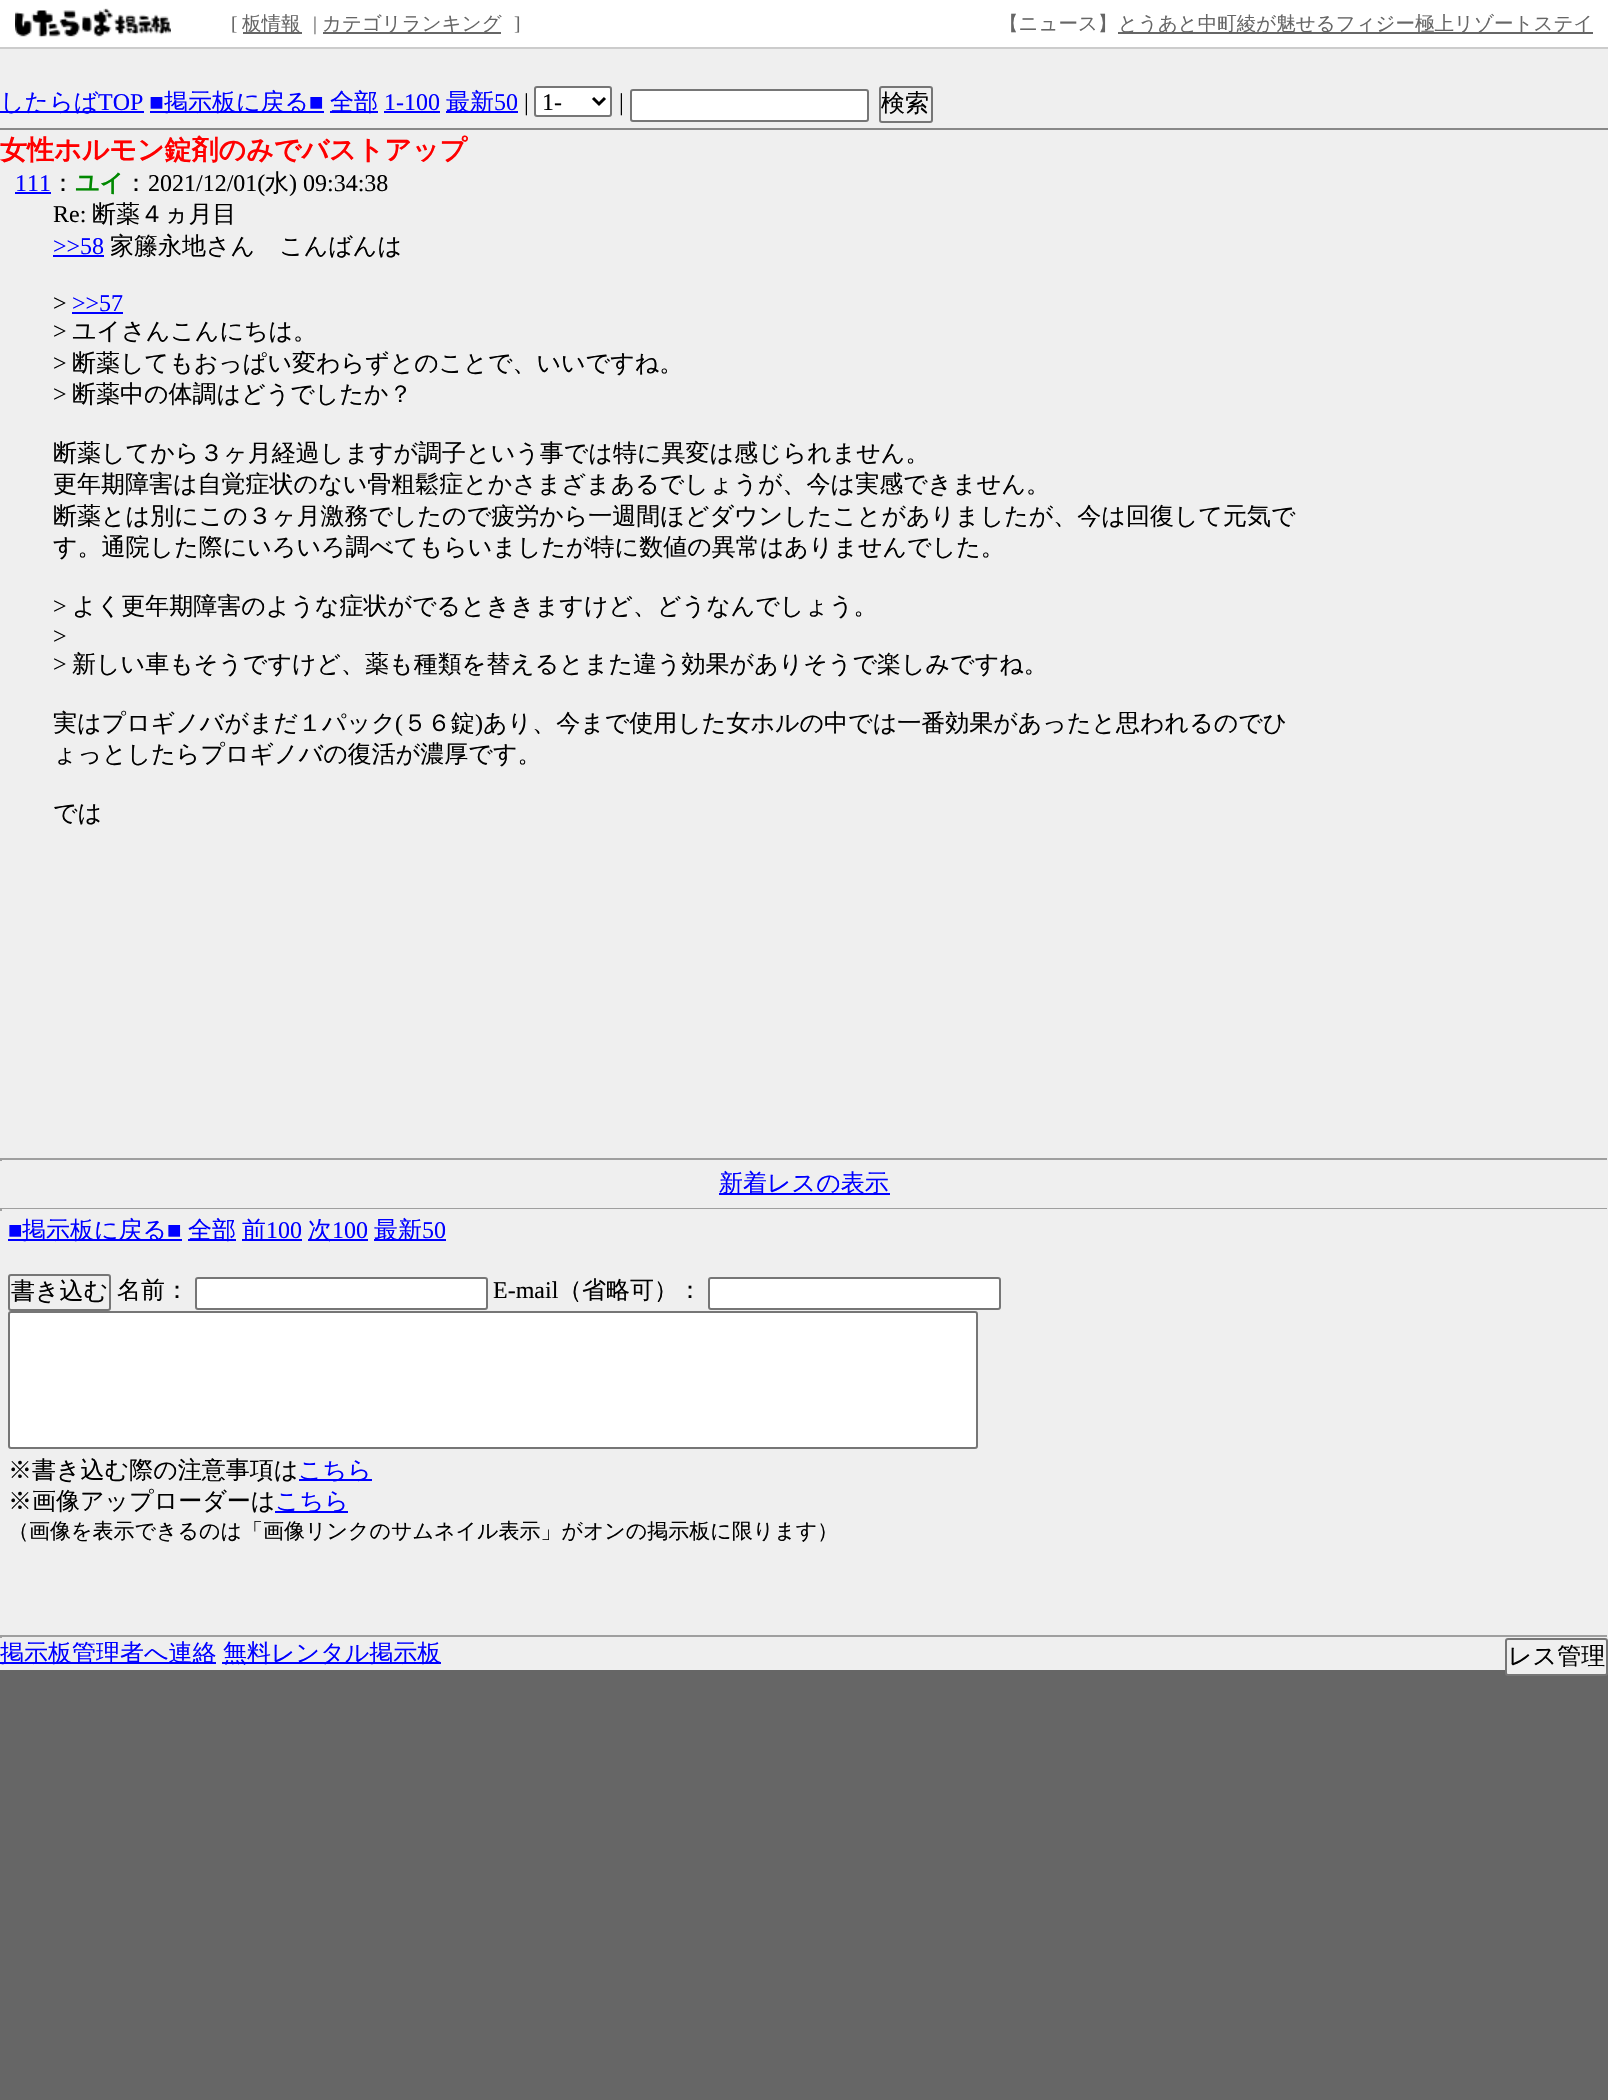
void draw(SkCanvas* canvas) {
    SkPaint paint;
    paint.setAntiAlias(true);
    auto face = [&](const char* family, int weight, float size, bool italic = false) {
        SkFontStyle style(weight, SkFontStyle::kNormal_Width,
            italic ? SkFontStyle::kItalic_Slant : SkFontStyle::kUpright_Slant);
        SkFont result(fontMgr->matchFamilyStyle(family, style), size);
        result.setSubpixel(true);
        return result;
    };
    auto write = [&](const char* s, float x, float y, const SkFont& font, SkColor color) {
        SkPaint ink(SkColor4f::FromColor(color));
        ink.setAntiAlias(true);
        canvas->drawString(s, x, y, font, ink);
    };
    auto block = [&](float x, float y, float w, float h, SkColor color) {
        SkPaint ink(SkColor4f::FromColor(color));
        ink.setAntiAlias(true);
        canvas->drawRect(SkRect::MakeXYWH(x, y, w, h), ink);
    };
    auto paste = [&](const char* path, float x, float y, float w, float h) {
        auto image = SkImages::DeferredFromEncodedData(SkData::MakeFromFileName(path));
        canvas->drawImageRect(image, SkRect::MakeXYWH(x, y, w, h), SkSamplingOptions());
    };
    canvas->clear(SkColorSetRGB(102, 102, 102));
    block(0, 49, 1608, 1621, SkColorSetRGB(239, 239, 239));
    block(0, 0, 1608, 47, SK_ColorWHITE);
    block(0, 47, 1608, 2, SkColorSetRGB(204, 204, 204));
    paste("pic1.png", 15, 8, 156, 30);
    auto kFont1 = face("Liberation Serif", 400, 19.5f);
    write("[", 231, 30, kFont1, SkColorSetRGB(102, 102, 102));
    block(243, 32, 59, 2, SkColorSetRGB(102, 102, 102));
    auto kFont2 = face("WenQuanYi Zen Hei", 500, 19.5f);
    write("板情報", 242, 30, kFont2, SkColorSetRGB(102, 102, 102));
    write("|", 313, 30, kFont1, SkColorSetRGB(102, 102, 102));
    block(323, 32, 178, 2, SkColorSetRGB(102, 102, 102));
    write("カテゴリランキング", 322, 30, kFont2, SkColorSetRGB(102, 102, 102));
    write("]", 514, 30, kFont1, SkColorSetRGB(102, 102, 102));
    write("【ニュース】", 999, 30, kFont2, SkColorSetRGB(102, 102, 102));
    block(1118, 32, 475, 2, SkColorSetRGB(102, 102, 102));
    write("とうあと中町綾が魅せるフィジー極上リゾートステイ", 1118, 30, kFont2, SkColorSetRGB(102, 102, 102));
    block(0, 128, 1608, 2, SkColorSetRGB(136, 136, 136));
    block(0, 111, 144, 2, SkColorSetRGB(0, 0, 255));
    auto kFont3 = face("WenQuanYi Zen Hei", 500, 24);
    write("したらば", 0, 110, kFont3, SkColorSetRGB(0, 0, 255));
    auto kFont4 = face("Liberation Serif", 400, 24);
    write("TOP ■", 98, 110, kFont4, SkColorSetRGB(0, 0, 255));
    block(150, 111, 174, 2, SkColorSetRGB(0, 0, 255));
    write("掲示板に戻る", 164, 110, kFont3, SkColorSetRGB(0, 0, 255));
    write("■", 309, 110, kFont4, SkColorSetRGB(0, 0, 255));
    block(330, 111, 48, 2, SkColorSetRGB(0, 0, 255));
    write("全部", 330, 110, kFont3, SkColorSetRGB(0, 0, 255));
    write("1-100", 384, 110, kFont4, SkColorSetRGB(0, 0, 255));
    block(384, 111, 56, 2, SkColorSetRGB(0, 0, 255));
    block(446, 111, 72, 2, SkColorSetRGB(0, 0, 255));
    write("最新", 446, 110, kFont3, SkColorSetRGB(0, 0, 255));
    write("50", 494, 110, kFont4, SkColorSetRGB(0, 0, 255));
    write("|", 524, 110, kFont4, SK_ColorBLACK);
    paint.setColor(SK_ColorWHITE);
    canvas->drawRoundRect(SkRect::MakeXYWH(535, 87, 76, 29), 2, 2, paint);
    paint.setStyle(SkPaint::kStroke_Style);
    paint.setStrokeWidth(2);
    paint.setColor(SkColorSetRGB(118, 118, 118));
    canvas->drawRoundRect(SkRect::MakeXYWH(535, 87, 76, 29), 2, 2, paint);
    paint.setStrokeWidth(3);
    paint.setColor(SK_ColorBLACK);
    canvas->drawPath(SkPathBuilder().moveTo(593, 98).lineTo(599, 104).lineTo(605, 98).detach(), paint);
    write("1-", 542, 110, kFont4, SK_ColorBLACK);
    write("|", 619, 110, kFont4, SK_ColorBLACK);
    paint.setStyle(SkPaint::kFill_Style);
    paint.setColor(SK_ColorWHITE);
    canvas->drawRoundRect(SkRect::MakeXYWH(631, 90, 237, 31), 2, 2, paint);
    paint.setStyle(SkPaint::kStroke_Style);
    paint.setStrokeWidth(2);
    paint.setColor(SkColorSetRGB(118, 118, 118));
    canvas->drawRoundRect(SkRect::MakeXYWH(631, 90, 237, 31), 2, 2, paint);
    canvas->drawRoundRect(SkRect::MakeXYWH(880, 87, 52, 35), 2, 2, paint);
    write("検索", 881, 111, kFont3, SK_ColorBLACK);
    auto kFont5 = face("WenQuanYi Zen Hei", 700, 27);
    write("女性ホルモン錠剤のみでバストアップ", 0, 159, kFont5, SkColorSetRGB(255, 0, 0));
    write("111", 15, 191, kFont4, SkColorSetRGB(0, 0, 255));
    block(15, 192, 36, 2, SkColorSetRGB(0, 0, 255));
    write("：", 51, 191, kFont3, SK_ColorBLACK);
    auto kFont6 = face("WenQuanYi Zen Hei", 700, 24);
    write("ユイ", 75, 191, kFont6, SkColorSetRGB(0, 136, 0));
    write("：", 124, 191, kFont3, SK_ColorBLACK);
    write("2021/12/01(", 148, 191, kFont4, SK_ColorBLACK);
    write("水", 265, 191, kFont3, SK_ColorBLACK);
    write(") 09:34:38", 289, 191, kFont4, SK_ColorBLACK);
    write("Re:", 53, 222, kFont4, SK_ColorBLACK);
    write("断薬４ヵ月目", 92, 222, kFont3, SK_ColorBLACK);
    write(">>58", 53, 254, kFont4, SkColorSetRGB(0, 0, 255));
    block(53, 255, 51, 2, SkColorSetRGB(0, 0, 255));
    write("家籐永地さん　こんばんは", 110, 254, kFont3, SK_ColorBLACK);
    write(">", 53, 311, kFont4, SK_ColorBLACK);
    write(">>57", 72, 311, kFont4, SkColorSetRGB(0, 0, 255));
    block(72, 312, 51, 2, SkColorSetRGB(0, 0, 255));
    write(">", 53, 339, kFont4, SK_ColorBLACK);
    write("ユイさんこんにちは。", 72, 339, kFont3, SK_ColorBLACK);
    write(">", 53, 371, kFont4, SK_ColorBLACK);
    write("断薬してもおっぱい変わらずとのことで、いいですね。", 72, 371, kFont3, SK_ColorBLACK);
    write(">", 53, 402, kFont4, SK_ColorBLACK);
    write("断薬中の体調はどうでしたか？", 72, 402, kFont3, SK_ColorBLACK);
    write("断薬してから３ヶ月経過しますが調子という事では特に異変は感じられません。", 53, 461, kFont3, SK_ColorBLACK);
    write("更年期障害は自覚症状のない骨粗鬆症とかさまざまあるでしょうが、今は実感できません。", 53, 492, kFont3, SK_ColorBLACK);
    write("断薬とは別にこの３ヶ月激務でしたので疲労から一週間ほどダウンしたことがありましたが、今は回復して元気で", 53, 524, kFont3, SK_ColorBLACK);
    write("す。通院した際にいろいろ調べてもらいましたが特に数値の異常はありませんでした。", 53, 555, kFont3, SK_ColorBLACK);
    write(">", 53, 614, kFont4, SK_ColorBLACK);
    write("よく更年期障害のような症状がでるとききますけど、どうなんでしょう。", 72, 614, kFont3, SK_ColorBLACK);
    write(">", 53, 644, kFont4, SK_ColorBLACK);
    write(">", 53, 672, kFont4, SK_ColorBLACK);
    write("新しい車もそうですけど、薬も種類を替えるとまた違う効果がありそうで楽しみですね。", 72, 672, kFont3, SK_ColorBLACK);
    write("実はプロギノバがまだ１パック", 53, 731, kFont3, SK_ColorBLACK);
    write("(", 395, 731, kFont4, SK_ColorBLACK);
    write("５６錠", 403, 731, kFont3, SK_ColorBLACK);
    write(")", 475, 731, kFont4, SK_ColorBLACK);
    write("あり、今まで使用した女ホルの中では一番効果があったと思われるのでひ", 483, 731, kFont3, SK_ColorBLACK);
    write("ょっとしたらプロギノバの復活が濃厚です。", 53, 762, kFont3, SK_ColorBLACK);
    write("では", 53, 821, kFont3, SK_ColorBLACK);
    block(0, 1158, 1608, 2, SkColorSetRGB(159, 159, 159));
    block(1607, 1158, 1, 3, SkColorSetRGB(238, 238, 238));
    block(0, 1158, 2, 3, SkColorSetRGB(159, 159, 159));
    block(719, 1193, 171, 2, SkColorSetRGB(0, 0, 255));
    write("新着レスの表示", 719, 1191, kFont3, SkColorSetRGB(0, 0, 255));
    block(0, 1208, 1608, 1, SkColorSetRGB(159, 159, 159));
    block(1607, 1208, 1, 3, SkColorSetRGB(238, 238, 238));
    block(0, 1208, 2, 3, SkColorSetRGB(159, 159, 159));
    write("■", 8, 1238, kFont4, SkColorSetRGB(0, 0, 255));
    block(8, 1239, 174, 2, SkColorSetRGB(0, 0, 255));
    write("掲示板に戻る", 22, 1238, kFont3, SkColorSetRGB(0, 0, 255));
    write("■", 167, 1238, kFont4, SkColorSetRGB(0, 0, 255));
    block(188, 1239, 48, 2, SkColorSetRGB(0, 0, 255));
    write("全部", 188, 1238, kFont3, SkColorSetRGB(0, 0, 255));
    block(242, 1239, 60, 2, SkColorSetRGB(0, 0, 255));
    write("前", 242, 1238, kFont3, SkColorSetRGB(0, 0, 255));
    write("100", 266, 1238, kFont4, SkColorSetRGB(0, 0, 255));
    block(308, 1239, 60, 2, SkColorSetRGB(0, 0, 255));
    write("次", 308, 1238, kFont3, SkColorSetRGB(0, 0, 255));
    write("100", 332, 1238, kFont4, SkColorSetRGB(0, 0, 255));
    block(374, 1239, 72, 2, SkColorSetRGB(0, 0, 255));
    write("最新", 374, 1238, kFont3, SkColorSetRGB(0, 0, 255));
    write("50", 422, 1238, kFont4, SkColorSetRGB(0, 0, 255));
    canvas->drawRoundRect(SkRect::MakeXYWH(9, 1275, 101, 35), 2, 2, paint);
    write("書き込む", 11, 1299, kFont3, SK_ColorBLACK);
    write("名前：", 117, 1298, kFont3, SK_ColorBLACK);
    paint.setStyle(SkPaint::kFill_Style);
    paint.setColor(SK_ColorWHITE);
    canvas->drawRoundRect(SkRect::MakeXYWH(196, 1278, 291, 31), 2, 2, paint);
    paint.setStyle(SkPaint::kStroke_Style);
    paint.setColor(SkColorSetRGB(118, 118, 118));
    canvas->drawRoundRect(SkRect::MakeXYWH(196, 1278, 291, 31), 2, 2, paint);
    write("E-mail", 493, 1298, kFont4, SK_ColorBLACK);
    write("（省略可）：", 558, 1298, kFont3, SK_ColorBLACK);
    paint.setStyle(SkPaint::kFill_Style);
    paint.setColor(SK_ColorWHITE);
    canvas->drawRoundRect(SkRect::MakeXYWH(709, 1278, 291, 31), 2, 2, paint);
    paint.setStyle(SkPaint::kStroke_Style);
    paint.setColor(SkColorSetRGB(118, 118, 118));
    canvas->drawRoundRect(SkRect::MakeXYWH(709, 1278, 291, 31), 2, 2, paint);
    paint.setStyle(SkPaint::kFill_Style);
    paint.setColor(SK_ColorWHITE);
    canvas->drawRoundRect(SkRect::MakeXYWH(9, 1312, 968, 136), 2, 2, paint);
    paint.setStyle(SkPaint::kStroke_Style);
    paint.setColor(SkColorSetRGB(118, 118, 118));
    canvas->drawRoundRect(SkRect::MakeXYWH(9, 1312, 968, 136), 2, 2, paint);
    write("※書き込む際の注意事項は", 8, 1478, kFont3, SK_ColorBLACK);
    block(299, 1479, 73, 2, SkColorSetRGB(0, 0, 255));
    write("こちら", 298, 1478, kFont3, SkColorSetRGB(0, 0, 255));
    write("※画像アップローダーは", 8, 1509, kFont3, SK_ColorBLACK);
    block(275, 1511, 73, 2, SkColorSetRGB(0, 0, 255));
    write("こちら", 275, 1509, kFont3, SkColorSetRGB(0, 0, 255));
    auto kFont7 = face("WenQuanYi Zen Hei", 500, 21);
    write("（画像を表示できるのは「画像リンクのサムネイル表示」がオンの掲示板に限ります）", 8, 1538, kFont7, SK_ColorBLACK);
    block(0, 1635, 1608, 2, SkColorSetRGB(159, 159, 159));
    block(1607, 1635, 1, 3, SkColorSetRGB(238, 238, 238));
    block(0, 1635, 2, 3, SkColorSetRGB(159, 159, 159));
    block(0, 1662, 216, 2, SkColorSetRGB(0, 0, 255));
    write("掲示板管理者へ連絡", 0, 1661, kFont3, SkColorSetRGB(0, 0, 255));
    block(222, 1662, 219, 2, SkColorSetRGB(0, 0, 255));
    write("無料レンタル掲示板", 223, 1661, kFont3, SkColorSetRGB(0, 0, 255));
    paint.setStyle(SkPaint::kFill_Style);
    paint.setColor(SkColorSetRGB(239, 239, 239));
    canvas->drawRoundRect(SkRect::MakeXYWH(1506, 1639, 101, 36), 2, 2, paint);
    paint.setStyle(SkPaint::kStroke_Style);
    paint.setColor(SkColorSetRGB(118, 118, 118));
    canvas->drawRoundRect(SkRect::MakeXYWH(1506, 1639, 101, 36), 2, 2, paint);
    write("レス管理", 1508, 1664, kFont3, SK_ColorBLACK);
}
